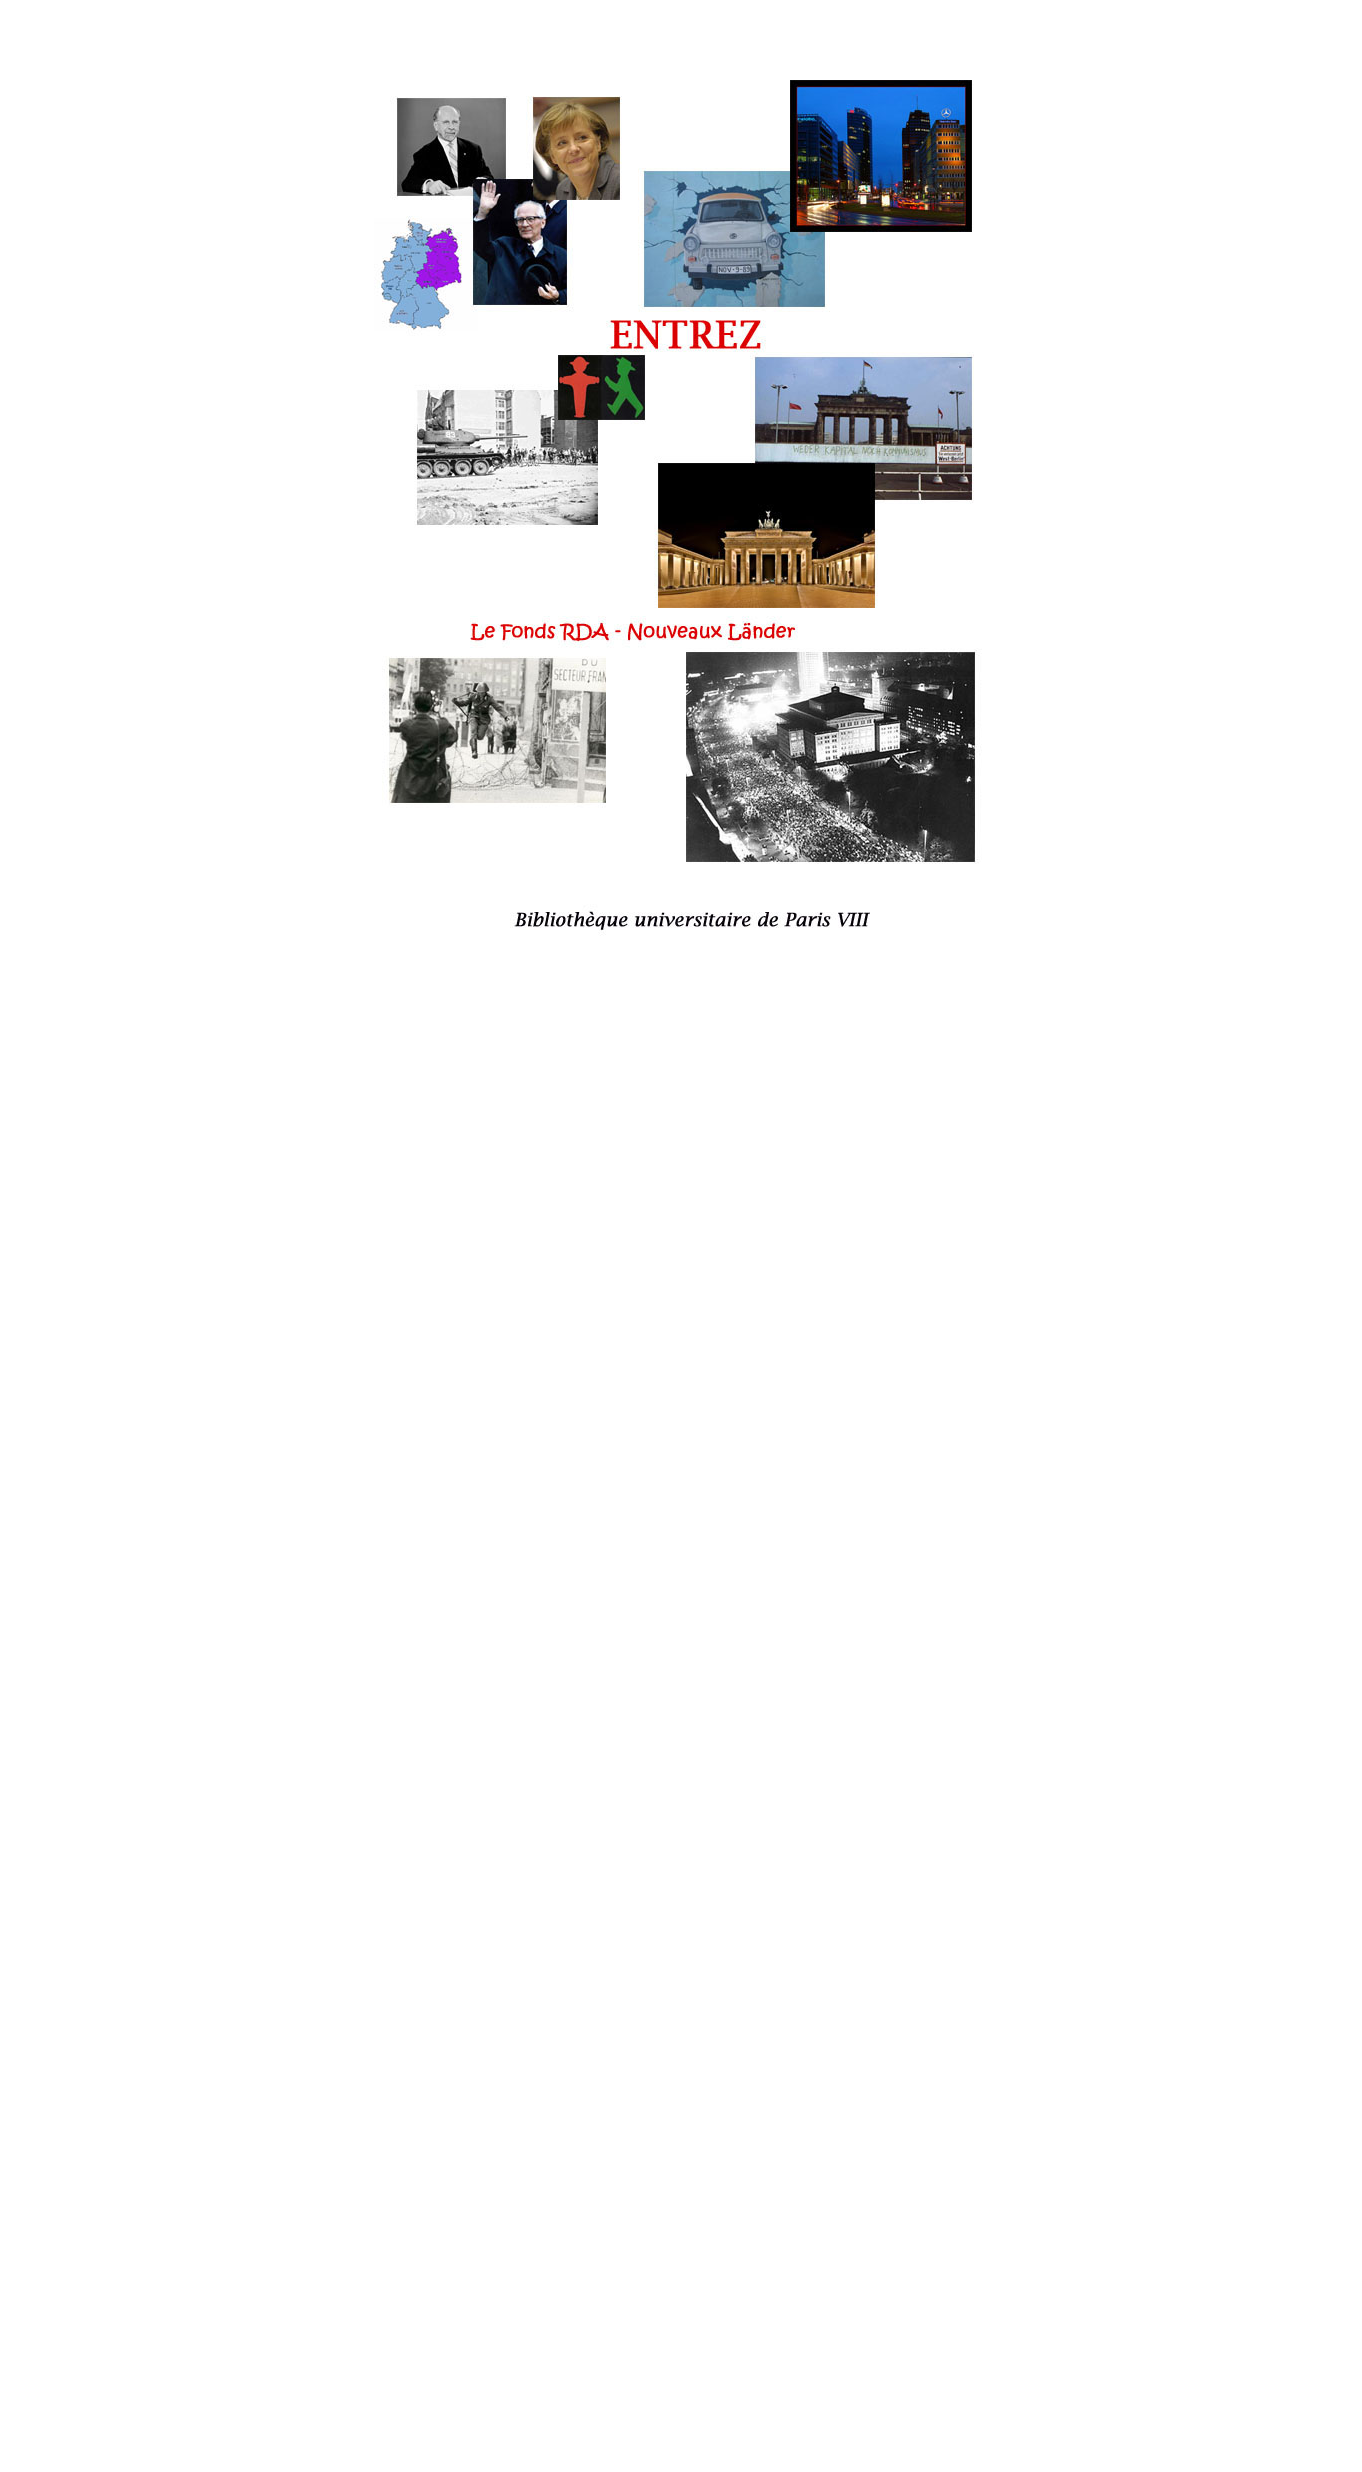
void draw(SkCanvas* canvas) {
    SkPaint paint;
    paint.setAntiAlias(true);
    auto paste = [&](const char* path, float x, float y, float w, float h) {
        auto image = SkImages::DeferredFromEncodedData(SkData::MakeFromFileName(path));
        canvas->drawImageRect(image, SkRect::MakeXYWH(x, y, w, h), SkSamplingOptions());
    };
    canvas->clear(SK_ColorWHITE);
    paste("pic1.png", 374, 80, 608, 856);
}
